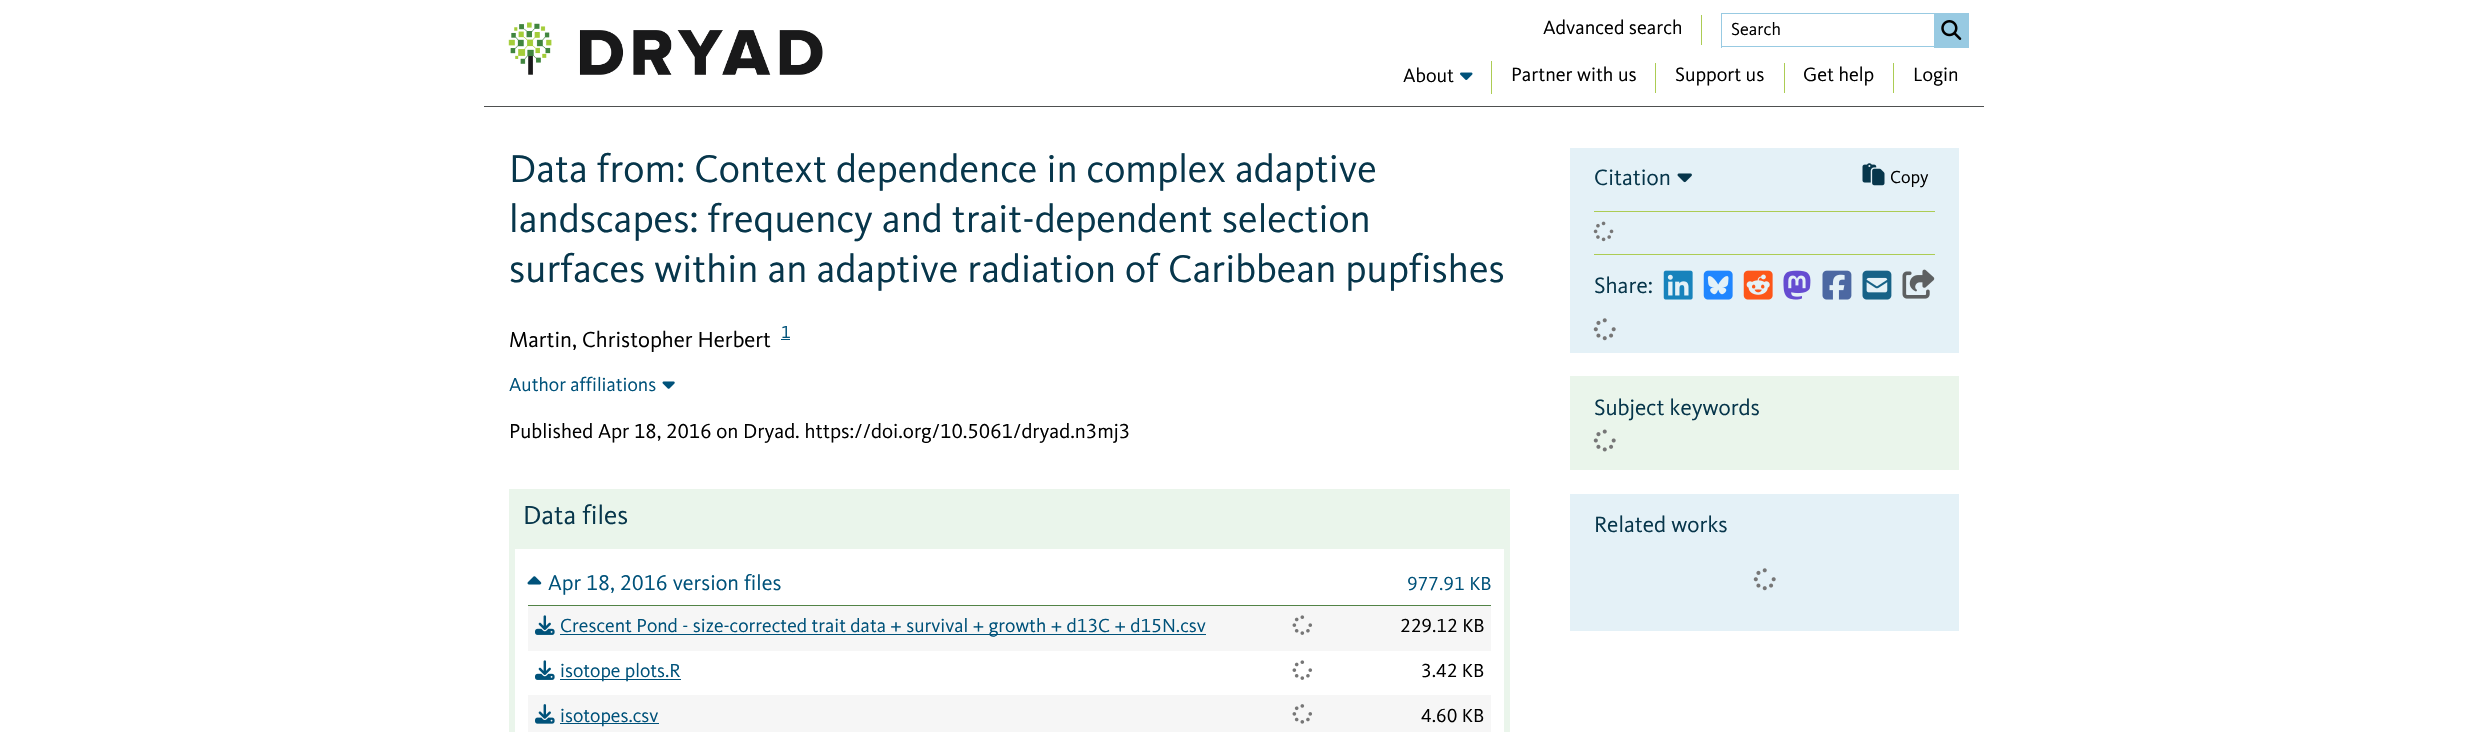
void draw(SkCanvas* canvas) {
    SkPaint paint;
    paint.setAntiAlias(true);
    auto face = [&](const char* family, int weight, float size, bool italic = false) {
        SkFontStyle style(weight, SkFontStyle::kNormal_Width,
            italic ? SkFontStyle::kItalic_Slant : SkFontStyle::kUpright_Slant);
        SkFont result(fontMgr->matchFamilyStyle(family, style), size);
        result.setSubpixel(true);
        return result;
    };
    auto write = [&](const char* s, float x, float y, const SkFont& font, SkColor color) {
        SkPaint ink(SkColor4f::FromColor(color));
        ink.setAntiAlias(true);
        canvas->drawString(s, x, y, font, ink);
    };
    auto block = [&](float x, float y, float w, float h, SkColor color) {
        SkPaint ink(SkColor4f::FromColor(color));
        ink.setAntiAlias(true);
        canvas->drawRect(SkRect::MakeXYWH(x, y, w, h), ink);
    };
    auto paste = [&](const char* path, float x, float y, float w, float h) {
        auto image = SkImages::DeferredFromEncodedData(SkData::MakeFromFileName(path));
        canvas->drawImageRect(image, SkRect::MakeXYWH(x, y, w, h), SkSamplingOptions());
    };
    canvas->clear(SK_ColorWHITE);
    block(484, 106, 1500, 1, SkColorSetRGB(78, 80, 80));
    paste("pic1.png", 508, 22, 315, 53);
    block(1701, 15, 1, 30, SkColorSetRGB(172, 204, 84));
    auto kFont1 = face("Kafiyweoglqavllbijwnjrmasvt", 400, 20);
    write("Advanced search", 1543, 34, kFont1, SK_ColorBLACK);
    block(1721, 13, 213, 1, SkColorSetRGB(152, 202, 226));
    block(1721, 46, 213, 1, SkColorSetRGB(152, 202, 226));
    block(1721, 13, 1, 35, SkColorSetRGB(152, 202, 226));
    auto kFont2 = face("Kafiyweoglqavllbijwnjrmasvt", 400, 18);
    write("Search", 1731, 35, kFont2, SK_ColorBLACK);
    block(1934, 13, 35, 35, SkColorSetRGB(152, 202, 226));
    paste("pic2.png", 1941, 20, 21, 20);
    block(1491, 61, 1, 33, SkColorSetRGB(172, 204, 84));
    write("About", 1403, 82, kFont1, SK_ColorBLACK);
    paste("pic3.png", 1460, 72, 13, 8);
    block(1655, 63, 1, 30, SkColorSetRGB(172, 204, 84));
    write("Partner with us", 1511, 81, kFont1, SK_ColorBLACK);
    block(1784, 63, 1, 30, SkColorSetRGB(172, 204, 84));
    write("Support us", 1675, 81, kFont1, SK_ColorBLACK);
    block(1893, 63, 1, 30, SkColorSetRGB(172, 204, 84));
    write("Get help", 1803, 81, kFont1, SK_ColorBLACK);
    write("Login", 1913, 81, kFont1, SK_ColorBLACK);
    auto kFont3 = face("Kafiyweoglqavllbijwnjrmasvt", 400, 40);
    write("Data from: Context dependence in complex adaptive", 509, 182, kFont3, SkColorSetRGB(7, 54, 75));
    write("landscapes: frequency and trait-dependent selection", 509, 232, kFont3, SkColorSetRGB(7, 54, 75));
    write("surfaces within an adaptive radiation of Caribbean pupfishes", 509, 282, kFont3, SkColorSetRGB(7, 54, 75));
    auto kFont4 = face("Kafiyweoglqavllbijwnjrmasvt", 400, 22.5f);
    write("Martin, Christopher Herbert", 509, 347, kFont4, SK_ColorBLACK);
    write("1", 781, 338, kFont2, SkColorSetRGB(0, 82, 122));
    block(781, 339, 9, 1, SkColorSetRGB(0, 82, 122));
    auto kFont5 = face("Kafiyweoglqavllbijwnjrmasvt", 400, 19.6f);
    write("Author affiliations", 509, 391, kFont5, SkColorSetRGB(0, 82, 122));
    paste("pic4.png", 662, 381, 13, 8);
    auto kFont6 = face("Kafiyweoglqavllbijwnjrmasvt", 400, 20.9f);
    write("Published Apr 18, 2016 on Dryad. https://doi.org/10.5061/dryad.n3mj3", 509, 438, kFont6, SK_ColorBLACK);
    block(509, 489, 1001, 60, SkColorSetRGB(234, 245, 235));
    auto kFont7 = face("Kafiyweoglqavllbijwnjrmasvt", 400, 27);
    write("Data files", 523, 524, kFont7, SkColorSetRGB(7, 54, 75));
    block(1504, 549, 6, 183, SkColorSetRGB(234, 245, 235));
    block(509, 549, 6, 183, SkColorSetRGB(234, 245, 235));
    block(528, 605, 963, 1, SkColorSetRGB(82, 131, 70));
    paste("pic5.png", 527, 576, 15, 9);
    auto kFont8 = face("Kafiyweoglqavllbijwnjrmasvt", 400, 22);
    write("Apr 18, 2016 version files", 548, 590, kFont8, SkColorSetRGB(0, 82, 122));
    write("977.91 KB", 1407, 590, kFont5, SkColorSetRGB(0, 82, 122));
    block(528, 606, 963, 45, SkColorSetRGB(246, 246, 246));
    paste("pic6.png", 535, 615, 20, 20);
    block(560, 634, 646, 1, SkColorSetRGB(0, 82, 122));
    write("Crescent Pond - size-corrected trait data + survival + growth + d13C + d15N.csv", 560, 632, kFont5, SkColorSetRGB(0, 82, 122));
    paste("pic7.png", 1292, 615, 21, 20);
    write("229.12 KB", 1400, 632, kFont5, SK_ColorBLACK);
    paste("pic8.png", 535, 660, 20, 20);
    block(560, 679, 121, 1, SkColorSetRGB(0, 82, 122));
    write("isotope plots.R", 560, 677, kFont5, SkColorSetRGB(0, 82, 122));
    paste("pic9.png", 1292, 660, 21, 20);
    write("3.42 KB", 1421, 677, kFont5, SK_ColorBLACK);
    block(528, 695, 963, 37, SkColorSetRGB(246, 246, 246));
    paste("pic10.png", 535, 704, 20, 20);
    block(560, 723, 99, 1, SkColorSetRGB(0, 82, 122));
    write("isotopes.csv", 560, 722, kFont5, SkColorSetRGB(0, 82, 122));
    paste("pic11.png", 1292, 704, 20, 20);
    write("4.60 KB", 1421, 722, kFont5, SK_ColorBLACK);
    block(1570, 148, 389, 205, SkColorSetRGB(228, 241, 247));
    auto kFont9 = face("Kafiyweoglqavllbijwnjrmasvt", 400, 23);
    write("Citation", 1594, 185, kFont9, SkColorSetRGB(7, 54, 75));
    paste("pic12.png", 1677, 173, 15, 10);
    paste("pic13.png", 1862, 163, 23, 23);
    write("Copy", 1890, 183, kFont2, SK_ColorBLACK);
    block(1594, 211, 341, 1, SkColorSetRGB(172, 204, 84));
    block(1594, 254, 341, 1, SkColorSetRGB(172, 204, 84));
    paste("pic14.png", 1593, 221, 21, 21);
    write("Share:", 1594, 293, kFont9, SkColorSetRGB(7, 54, 75));
    paste("pic15.png", 1663, 270, 30, 30);
    paste("pic16.png", 1703, 270, 30, 30);
    paste("pic17.png", 1743, 270, 30, 30);
    paste("pic18.png", 1783, 270, 28, 30);
    paste("pic19.png", 1822, 270, 30, 30);
    paste("pic20.png", 1862, 270, 30, 30);
    paste("pic21.png", 1902, 269, 33, 30);
    paste("pic22.png", 1593, 318, 23, 23);
    block(1570, 376, 389, 94, SkColorSetRGB(234, 245, 235));
    write("Subject keywords", 1594, 415, kFont9, SkColorSetRGB(7, 54, 75));
    paste("pic23.png", 1593, 429, 23, 23);
    block(1570, 494, 389, 137, SkColorSetRGB(228, 241, 247));
    write("Related works", 1594, 532, kFont9, SkColorSetRGB(7, 54, 75));
    paste("pic22.png", 1753, 568, 23, 23);
}
